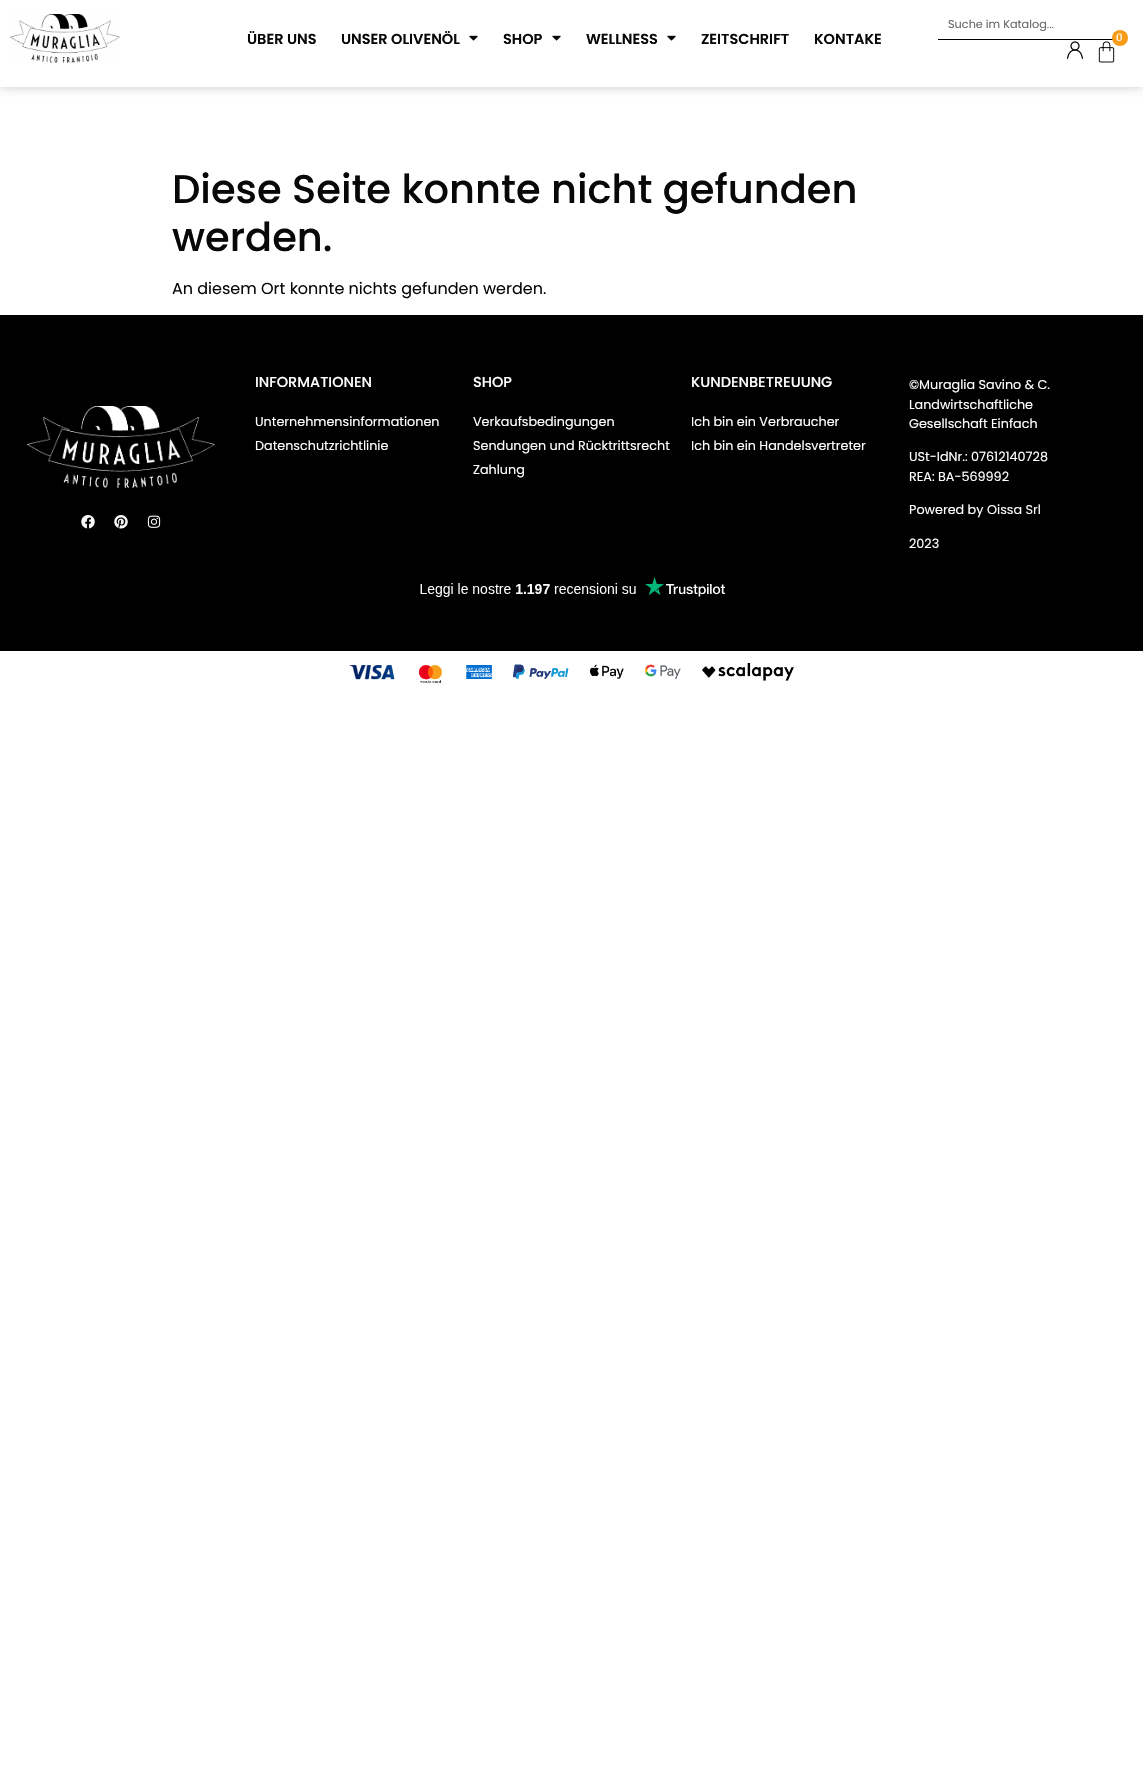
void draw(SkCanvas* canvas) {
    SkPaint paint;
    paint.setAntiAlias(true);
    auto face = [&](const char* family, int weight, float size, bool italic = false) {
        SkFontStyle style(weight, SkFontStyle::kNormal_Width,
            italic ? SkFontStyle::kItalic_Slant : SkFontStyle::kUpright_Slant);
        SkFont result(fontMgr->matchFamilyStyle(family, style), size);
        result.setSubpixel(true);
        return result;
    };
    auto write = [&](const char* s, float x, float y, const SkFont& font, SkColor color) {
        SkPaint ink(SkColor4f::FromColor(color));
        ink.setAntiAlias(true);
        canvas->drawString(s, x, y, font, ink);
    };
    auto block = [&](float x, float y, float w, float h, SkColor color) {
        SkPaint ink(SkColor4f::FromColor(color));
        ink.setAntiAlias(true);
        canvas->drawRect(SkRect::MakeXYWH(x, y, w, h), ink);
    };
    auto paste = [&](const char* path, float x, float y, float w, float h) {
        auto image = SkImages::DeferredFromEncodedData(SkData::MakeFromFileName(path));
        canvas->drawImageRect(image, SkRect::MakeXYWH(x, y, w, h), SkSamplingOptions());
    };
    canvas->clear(SK_ColorWHITE);
    paint.setColor(SkColorSetARGB(54, 0, 0, 0));
    paint.setMaskFilter(SkMaskFilter::MakeBlur(kNormal_SkBlurStyle, 5));
    canvas->drawRect(SkRect::MakeXYWH(0, 0, 1143, 87), paint);
    paint.setMaskFilter(nullptr);
    block(0, 0, 1143, 87, SK_ColorWHITE);
    paste("pic1.png", 10, 14, 110, 49);
    auto kFont1 = face("Poppins", 600, 14.5f);
    write("ÜBER UNS", 247, 44, kFont1, SkColorSetRGB(8, 8, 8));
    write("UNSER OLIVENÖL", 341, 44, kFont1, SkColorSetRGB(8, 8, 8));
    paste("pic2.png", 469, 35, 9, 6);
    write("SHOP", 503, 44, kFont1, SkColorSetRGB(8, 8, 8));
    paste("pic2.png", 552, 35, 9, 6);
    write("WELLNESS", 586, 44, kFont1, SkColorSetRGB(8, 8, 8));
    paste("pic2.png", 667, 35, 9, 6);
    write("ZEITSCHRIFT", 701, 44, kFont1, SkColorSetRGB(8, 8, 8));
    write("KONTAKE", 814, 44, kFont1, SkColorSetRGB(8, 8, 8));
    block(938, 39, 180, 1, SK_ColorBLACK);
    auto kFont2 = face("Poppins", 400, 11.25f);
    write("Suche im Katalog...", 948, 28, kFont2, SkColorSetRGB(102, 102, 102));
    paste("pic3.png", 1098, 41, 17, 22);
    paint.setColor(SkColorSetRGB(248, 155, 22));
    canvas->drawCircle(1120, 38, 8, paint);
    auto kFont3 = face("Merriweather", 400, 10);
    write("0", 1116, 41, kFont3, SK_ColorWHITE);
    paste("pic4.png", 1066, 41, 18, 18);
    auto kFont4 = face("Poppins", 500, 40);
    write("Diese Seite konnte nicht gefunden", 172, 203, kFont4, SkColorSetRGB(8, 8, 8));
    write("werden.", 172, 251, kFont4, SkColorSetRGB(8, 8, 8));
    auto kFont5 = face("Poppins", 400, 16);
    write("An diesem Ort konnte nichts gefunden werden.", 172, 294, kFont5, SkColorSetRGB(8, 8, 8));
    block(0, 315, 1143, 336, SK_ColorBLACK);
    paste("pic5.png", 27, 406, 188, 82);
    paste("pic6.png", 81, 515, 14, 14);
    paste("pic7.png", 114, 515, 14, 14);
    paste("pic8.png", 147, 515, 14, 13);
    auto kFont6 = face("Poppins", 500, 14.5f);
    write("INFORMATIONEN", 255, 387, kFont6, SK_ColorWHITE);
    auto kFont7 = face("Poppins", 400, 12.75f);
    write("Unternehmensinformationen", 255, 426, kFont7, SK_ColorWHITE);
    write("Datenschutzrichtlinie", 255, 450, kFont7, SK_ColorWHITE);
    write("SHOP", 473, 387, kFont6, SK_ColorWHITE);
    write("Verkaufsbedingungen", 473, 426, kFont7, SK_ColorWHITE);
    write("Sendungen und Rücktrittsrecht", 473, 450, kFont7, SK_ColorWHITE);
    write("Zahlung", 473, 474, kFont7, SK_ColorWHITE);
    write("KUNDENBETREUUNG", 691, 387, kFont6, SK_ColorWHITE);
    write("Ich bin ein Verbraucher", 691, 426, kFont7, SK_ColorWHITE);
    write("Ich bin ein Handelsvertreter", 691, 450, kFont7, SK_ColorWHITE);
    write("©Muraglia Savino & C.", 909, 389, kFont7, SK_ColorWHITE);
    write("Landwirtschaftliche", 909, 409, kFont7, SK_ColorWHITE);
    write("Gesellschaft Einfach", 909, 428, kFont7, SK_ColorWHITE);
    write("USt-IdNr.: 07612140728", 909, 461, kFont7, SK_ColorWHITE);
    write("REA: BA-569992", 909, 481, kFont7, SK_ColorWHITE);
    write("Powered by", 909, 514, kFont7, SK_ColorWHITE);
    write("Oissa Srl", 987, 514, kFont7, SkColorSetRGB(248, 248, 248));
    write("2023", 909, 548, kFont7, SK_ColorWHITE);
    paste("pic9.png", 420, 577, 305, 20);
    paste("pic10.png", 349, 663, 445, 20);
}
